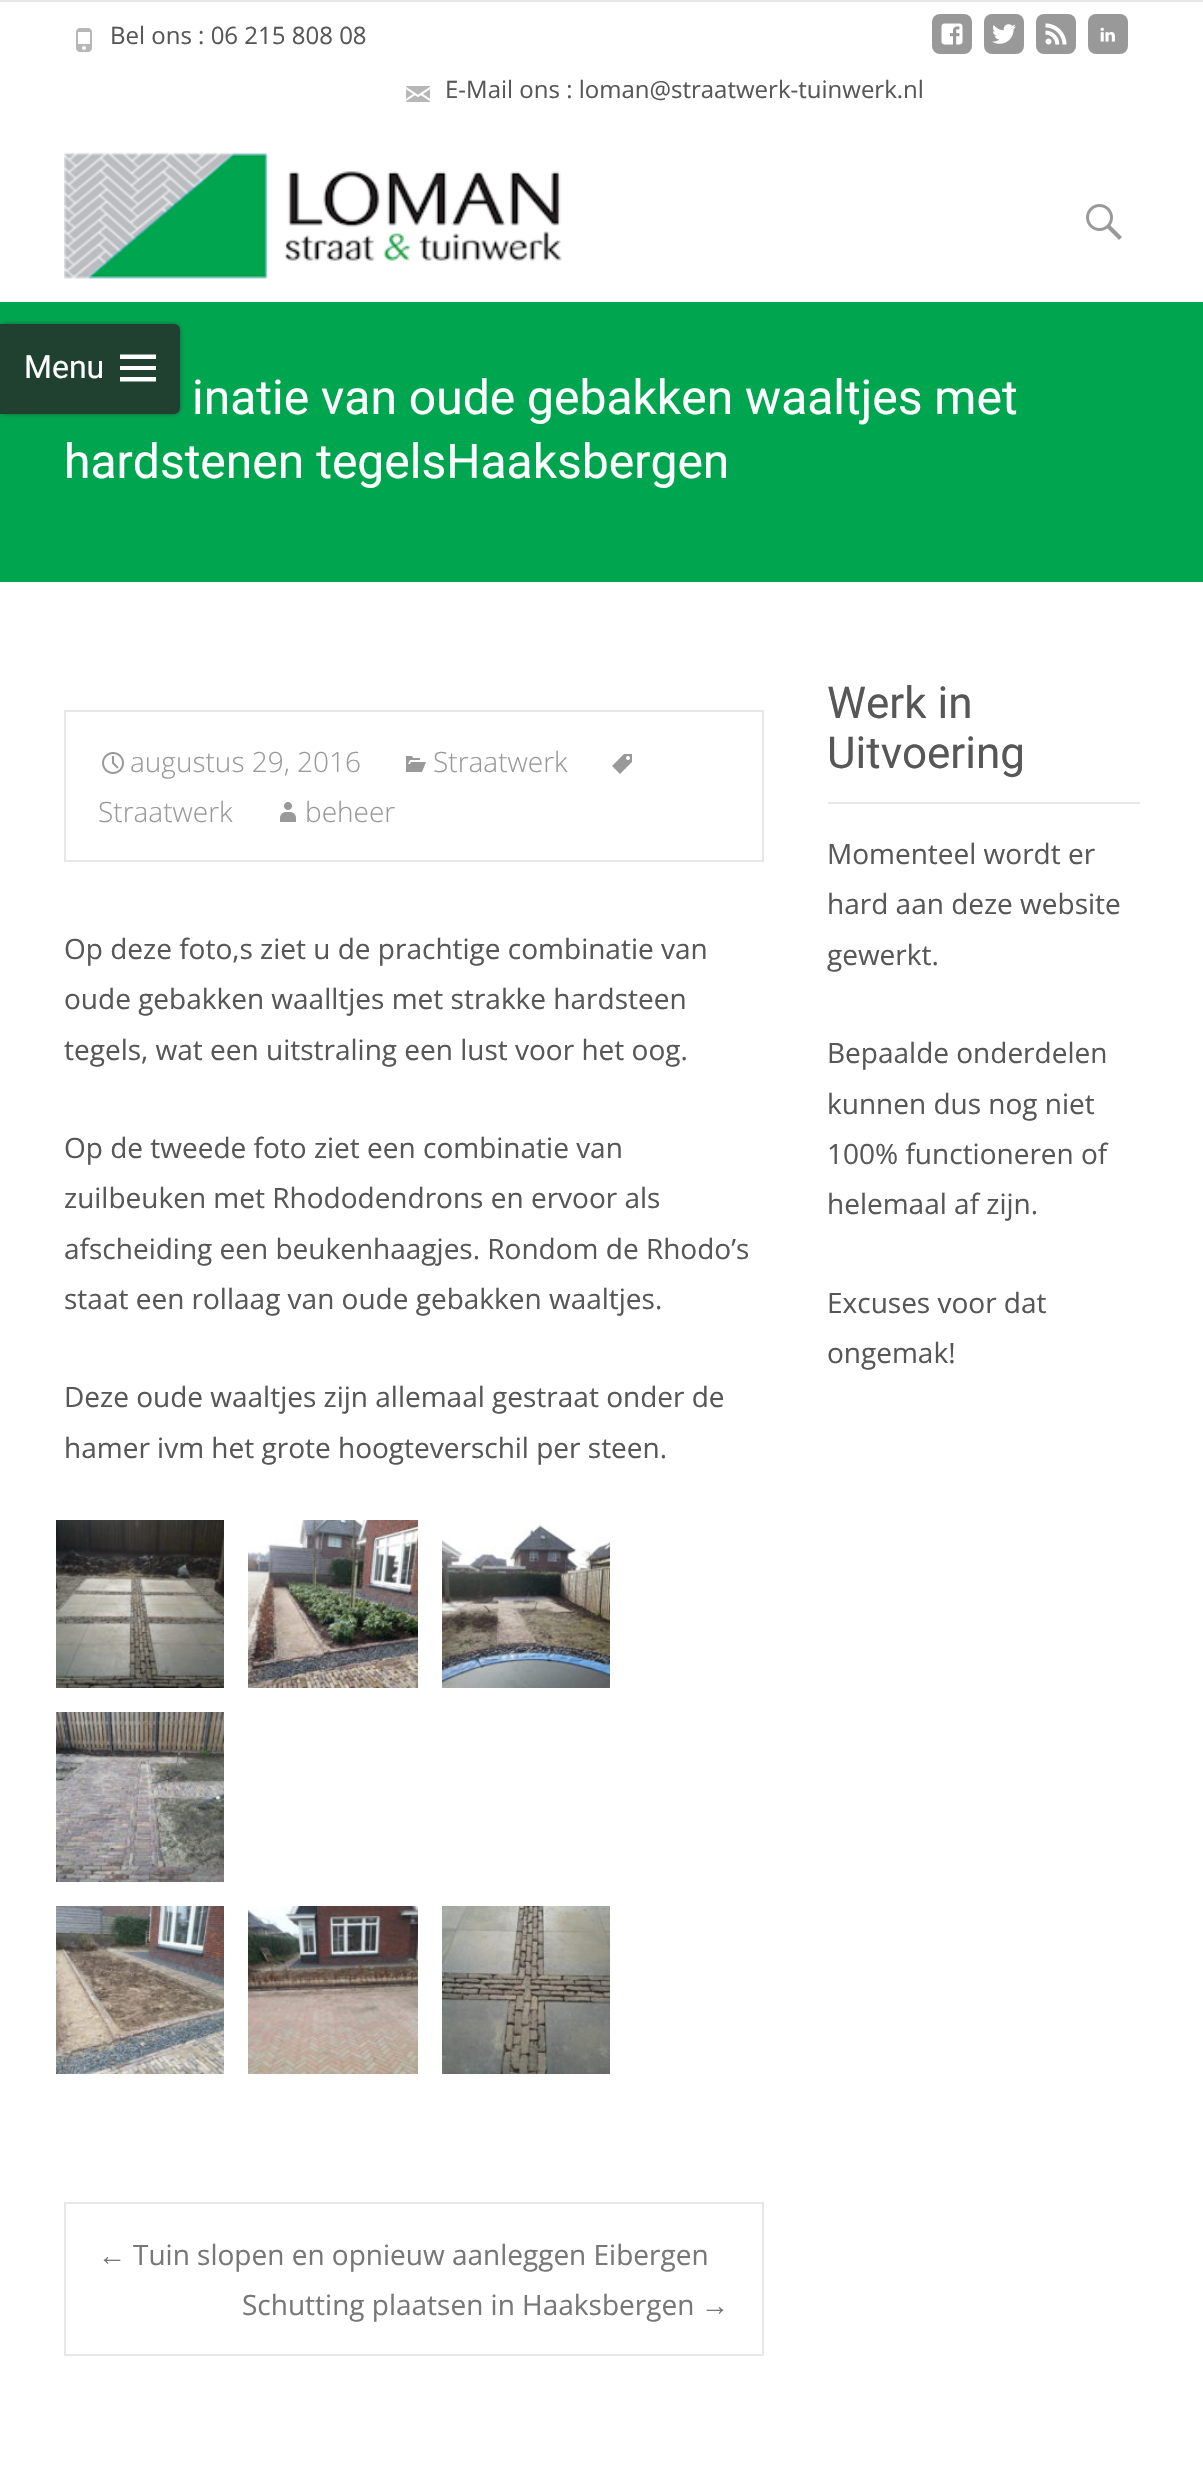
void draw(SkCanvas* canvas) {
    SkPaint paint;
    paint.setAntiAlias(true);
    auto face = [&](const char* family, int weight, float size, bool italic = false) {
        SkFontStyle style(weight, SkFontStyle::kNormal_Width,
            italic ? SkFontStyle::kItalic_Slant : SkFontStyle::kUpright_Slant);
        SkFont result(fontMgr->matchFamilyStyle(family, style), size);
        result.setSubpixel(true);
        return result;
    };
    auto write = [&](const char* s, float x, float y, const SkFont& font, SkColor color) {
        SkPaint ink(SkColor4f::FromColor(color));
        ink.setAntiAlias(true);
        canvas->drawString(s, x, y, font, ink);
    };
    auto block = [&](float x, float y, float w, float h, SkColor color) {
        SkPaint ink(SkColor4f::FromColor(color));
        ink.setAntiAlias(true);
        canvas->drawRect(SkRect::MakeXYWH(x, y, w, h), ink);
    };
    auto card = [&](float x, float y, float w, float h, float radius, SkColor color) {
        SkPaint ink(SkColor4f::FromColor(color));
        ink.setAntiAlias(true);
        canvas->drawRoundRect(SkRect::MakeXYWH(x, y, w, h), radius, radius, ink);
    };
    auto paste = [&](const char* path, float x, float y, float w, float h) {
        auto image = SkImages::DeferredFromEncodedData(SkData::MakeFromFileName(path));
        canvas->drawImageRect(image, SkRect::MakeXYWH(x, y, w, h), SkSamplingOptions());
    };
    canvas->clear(SK_ColorWHITE);
    block(0, 0, 1203, 2, SkColorSetRGB(231, 231, 231));
    paste("pic1.png", 76, 28, 16, 24);
    auto kFont1 = face("Open Sans", 400, 24);
    write("Bel ons : 06 215 808 08", 110, 44, kFont1, SkColorSetRGB(87, 87, 87));
    card(932, 14, 40, 40, 8, SkColorSetRGB(153, 153, 153));
    paste("pic2.png", 941, 23, 22, 22);
    card(984, 14, 40, 40, 8, SkColorSetRGB(153, 153, 153));
    paste("pic3.png", 992, 24, 24, 20);
    card(1036, 14, 40, 40, 8, SkColorSetRGB(153, 153, 153));
    paste("pic4.png", 1045, 23, 22, 22);
    card(1088, 14, 40, 40, 8, SkColorSetRGB(153, 153, 153));
    paste("pic5.png", 1100, 27, 15, 15);
    paste("pic6.png", 406, 86, 24, 16);
    write("E-Mail ons : loman@straatwerk-tuinwerk.nl", 445, 98, kFont1, SkColorSetRGB(87, 87, 87));
    paste("pic7.png", 64, 152, 498, 128);
    paste("pic8.png", 1086, 204, 36, 36);
    block(0, 302, 1203, 280, SkColorSetRGB(0, 165, 79));
    canvas->save();
    canvas->clipPath(SkPathBuilder(SkPathFillType::kEvenOdd).moveTo(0, 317).lineTo(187, 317).lineTo(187, 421).lineTo(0, 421).close().moveTo(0, 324).lineTo(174, 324).cubicTo(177.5f, 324, 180, 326.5f, 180, 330).lineTo(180, 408).cubicTo(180, 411.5f, 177.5f, 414, 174, 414).lineTo(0, 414).close().detach(), true);
    paint.setColor(SkColorSetARGB(163, 50, 50, 50));
    paint.setMaskFilter(SkMaskFilter::MakeBlur(kNormal_SkBlurStyle, 2));
    canvas->drawRoundRect(SkRect::MakeXYWH(0, 324, 180, 90), 6, 6, paint);
    paint.setMaskFilter(nullptr);
    canvas->restore();
    paint.setColor(SkColorSetARGB(204, 40, 40, 40));
    canvas->drawPath(SkPathBuilder().moveTo(0, 324).lineTo(174, 324).cubicTo(177.5f, 324, 180, 326.5f, 180, 330).lineTo(180, 408).cubicTo(180, 411.5f, 177.5f, 414, 174, 414).lineTo(0, 414).close().detach(), paint);
    auto kFont2 = face("Roboto", 400, 32);
    write("Menu", 24, 378, kFont2, SK_ColorWHITE);
    paint.setColor(SK_ColorWHITE);
    canvas->drawPath(SkPathBuilder().moveTo(120, 381.5f).lineTo(120, 377).lineTo(156, 377).lineTo(156, 381.5f).close().moveTo(120, 370).lineTo(120, 366).lineTo(156, 366).lineTo(156, 370).close().moveTo(120, 359).lineTo(120, 354.5f).lineTo(156, 354.5f).lineTo(156, 359).close().detach(), paint);
    auto kFont3 = face("Roboto", 400, 48);
    write("inatie van oude gebakken waaltjes met", 192, 414, kFont3, SK_ColorWHITE);
    write("hardstenen tegelsHaaksbergen", 64, 478, kFont3, SK_ColorWHITE);
    paint.setStyle(SkPaint::kStroke_Style);
    paint.setStrokeWidth(2);
    paint.setColor(SkColorSetRGB(231, 231, 231));
    canvas->drawRect(SkRect::MakeXYWH(65, 711, 698, 150), paint);
    paste("pic9.png", 102, 752, 22, 22);
    auto kFont4 = face("Open Sans", 300, 28);
    write("augustus 29, 2016", 130, 772, kFont4, SkColorSetRGB(153, 153, 153));
    paste("pic10.png", 406, 756, 20, 16);
    write("Straatwerk", 433, 772, kFont4, SkColorSetRGB(153, 153, 153));
    paste("pic11.png", 612, 754, 20, 20);
    write("Straatwerk", 98, 822, kFont4, SkColorSetRGB(153, 153, 153));
    paste("pic12.png", 280, 802, 16, 20);
    write("beheer", 305, 822, kFont4, SkColorSetRGB(153, 153, 153));
    auto kFont5 = face("Open Sans", 400, 28);
    write("Op deze foto,s ziet u de prachtige combinatie van", 64, 959, kFont5, SkColorSetRGB(87, 87, 87));
    write("oude gebakken waalltjes met strakke hardsteen", 64, 1009, kFont5, SkColorSetRGB(87, 87, 87));
    write("tegels, wat een uitstraling een lust voor het oog.", 64, 1060, kFont5, SkColorSetRGB(87, 87, 87));
    write("Op de tweede foto ziet een combinatie van", 64, 1158, kFont5, SkColorSetRGB(87, 87, 87));
    write("zuilbeuken met Rhododendrons en ervoor als", 64, 1208, kFont5, SkColorSetRGB(87, 87, 87));
    write("afscheiding een beukenhaagjes. Rondom de Rhodo’s", 64, 1259, kFont5, SkColorSetRGB(87, 87, 87));
    write("staat een rollaag van oude gebakken waaltjes.", 64, 1309, kFont5, SkColorSetRGB(87, 87, 87));
    write("Deze oude waaltjes zijn allemaal gestraat onder de", 64, 1407, kFont5, SkColorSetRGB(87, 87, 87));
    write("hamer ivm het grote hoogteverschil per steen.", 64, 1458, kFont5, SkColorSetRGB(87, 87, 87));
    paste("pic13.png", 56, 1520, 168, 168);
    paste("pic14.png", 248, 1520, 170, 168);
    paste("pic15.png", 442, 1520, 168, 168);
    paste("pic16.png", 56, 1712, 168, 170);
    paste("pic17.png", 56, 1906, 168, 168);
    paste("pic18.png", 248, 1906, 170, 168);
    paste("pic19.png", 442, 1906, 168, 168);
    canvas->drawRect(SkRect::MakeXYWH(65, 2203, 698, 152), paint);
    auto kFont6 = face("Liberation Sans", 400, 28);
    write("←", 98, 2265, kFont6, SkColorSetRGB(119, 119, 119));
    write("Tuin slopen en opnieuw aanleggen Eibergen", 133, 2265, kFont5, SkColorSetRGB(119, 119, 119));
    write("Schutting plaatsen in Haaksbergen", 242, 2315, kFont5, SkColorSetRGB(119, 119, 119));
    write("→", 701, 2315, kFont6, SkColorSetRGB(119, 119, 119));
    block(828, 802, 312, 2, SkColorSetRGB(231, 231, 231));
    auto kFont7 = face("Roboto", 400, 44);
    write("Werk in", 827, 718, kFont7, SkColorSetRGB(87, 87, 87));
    write("Uitvoering", 827, 768, kFont7, SkColorSetRGB(87, 87, 87));
    write("Momenteel wordt er", 827, 864, kFont5, SkColorSetRGB(87, 87, 87));
    write("hard aan deze website", 827, 914, kFont5, SkColorSetRGB(87, 87, 87));
    write("gewerkt.", 827, 965, kFont5, SkColorSetRGB(87, 87, 87));
    write("Bepaalde onderdelen", 827, 1063, kFont5, SkColorSetRGB(87, 87, 87));
    write("kunnen dus nog niet", 827, 1114, kFont5, SkColorSetRGB(87, 87, 87));
    write("100% functioneren of", 827, 1164, kFont5, SkColorSetRGB(87, 87, 87));
    write("helemaal af zijn.", 827, 1214, kFont5, SkColorSetRGB(87, 87, 87));
    write("Excuses voor dat", 827, 1313, kFont5, SkColorSetRGB(87, 87, 87));
    write("ongemak!", 827, 1363, kFont5, SkColorSetRGB(87, 87, 87));
}
